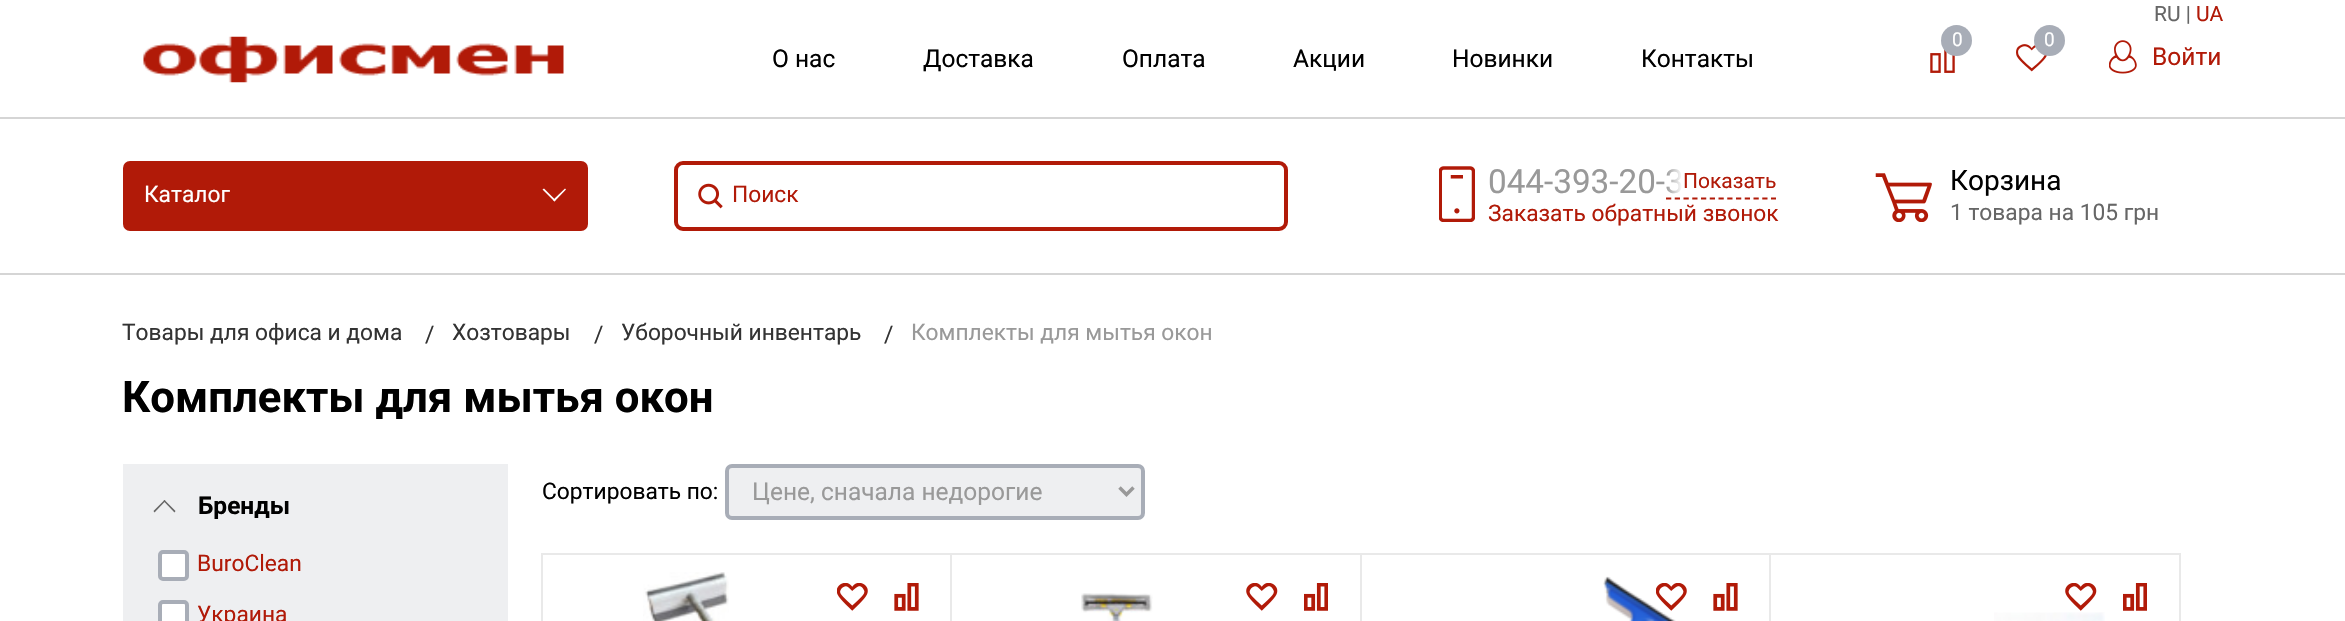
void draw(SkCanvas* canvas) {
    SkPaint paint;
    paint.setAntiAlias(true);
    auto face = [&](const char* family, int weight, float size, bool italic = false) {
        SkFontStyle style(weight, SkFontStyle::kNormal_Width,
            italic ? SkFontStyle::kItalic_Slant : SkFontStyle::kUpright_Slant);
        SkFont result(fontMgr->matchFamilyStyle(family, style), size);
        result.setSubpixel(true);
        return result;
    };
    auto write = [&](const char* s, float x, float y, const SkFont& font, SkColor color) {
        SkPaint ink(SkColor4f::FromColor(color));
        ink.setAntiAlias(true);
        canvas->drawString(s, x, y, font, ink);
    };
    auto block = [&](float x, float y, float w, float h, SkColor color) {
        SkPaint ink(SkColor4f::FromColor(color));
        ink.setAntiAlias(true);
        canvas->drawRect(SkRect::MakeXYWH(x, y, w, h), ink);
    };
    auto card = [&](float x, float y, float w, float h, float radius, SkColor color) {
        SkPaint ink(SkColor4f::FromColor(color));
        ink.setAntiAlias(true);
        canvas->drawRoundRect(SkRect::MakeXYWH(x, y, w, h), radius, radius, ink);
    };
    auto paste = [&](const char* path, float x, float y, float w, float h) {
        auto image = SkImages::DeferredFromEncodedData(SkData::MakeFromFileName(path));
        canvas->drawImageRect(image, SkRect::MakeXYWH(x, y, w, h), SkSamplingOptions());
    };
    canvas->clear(SK_ColorWHITE);
    block(0, 117, 2345, 2, SkColorSetRGB(213, 213, 213));
    auto kFont1 = face("Roboto", 400, 21);
    write("RU |", 2154, 21, kFont1, SkColorSetRGB(102, 102, 102));
    write("UA", 2196, 21, kFont1, SkColorSetRGB(177, 26, 8));
    paste("pic1.png", 143, 36, 421, 47);
    auto kFont2 = face("Roboto", 400, 24.5f);
    write("О нас", 772, 67, kFont2, SK_ColorBLACK);
    write("Доставка", 923, 67, kFont2, SK_ColorBLACK);
    write("Оплата", 1122, 67, kFont2, SK_ColorBLACK);
    write("Акции", 1293, 67, kFont2, SK_ColorBLACK);
    write("Новинки", 1452, 67, kFont2, SK_ColorBLACK);
    write("Контакты", 1641, 67, kFont2, SK_ColorBLACK);
    paste("pic2.png", 1930, 49, 25, 24);
    paint.setColor(SkColorSetRGB(168, 173, 183));
    canvas->drawCircle(1956.5f, 40.5f, 15.5f, paint);
    auto kFont3 = face("Roboto", 400, 19);
    write("0", 1952, 46, kFont3, SK_ColorWHITE);
    paste("pic3.png", 2016, 44, 31, 28);
    canvas->drawCircle(2049.5f, 40.5f, 15.5f, paint);
    write("0", 2044, 46, kFont3, SK_ColorWHITE);
    paste("pic4.png", 2109, 40, 28, 34);
    write("Войти", 2152, 65, kFont2, SkColorSetRGB(177, 26, 8));
    block(0, 273, 2345, 2, SkColorSetRGB(213, 213, 213));
    card(123, 161, 465, 70, 7, SkColorSetRGB(177, 26, 8));
    auto kFont4 = face("Roboto", 400, 22.75f);
    write("Каталог", 144, 202, kFont4, SK_ColorWHITE);
    paint.setColor(SK_ColorWHITE);
    canvas->drawPath(SkPathBuilder().moveTo(553, 200).lineTo(565, 188.5f).lineTo(566, 189.5f).lineTo(554.5f, 201.5f).close().detach(), paint);
    canvas->drawPath(SkPathBuilder().moveTo(542.5f, 189.5f).lineTo(544, 188.5f).lineTo(555.5f, 200).lineTo(554.5f, 201.5f).close().detach(), paint);
    paint.setStyle(SkPaint::kStroke_Style);
    paint.setStrokeWidth(4);
    paint.setColor(SkColorSetRGB(177, 26, 8));
    canvas->drawRoundRect(SkRect::MakeXYWH(676, 163, 610, 66), 7, 7, paint);
    paste("pic5.png", 698, 183, 25, 26);
    write("Поиск", 732, 202, kFont4, SkColorSetRGB(177, 26, 8));
    paste("pic6.png", 1439, 166, 36, 56);
    auto kFont5 = face("Roboto", 400, 33.25f);
    write("044-393-20-3", 1488, 193, kFont5, SkColorSetRGB(153, 153, 153));
    paint.setStyle(SkPaint::kFill_Style);
    {
        const SkColor colors[] = {SkColorSetARGB(0, 255, 255, 255), SK_ColorWHITE, SK_ColorWHITE};
        const float stops[] = {0, 0.15f, 1};
        const SkPoint ends[] = {{1666, 182}, {1776, 182}};
        paint.setShader(SkGradientShader::MakeLinear(ends, colors, stops, 3, SkTileMode::kClamp));
        paint.setAlpha(255);
    }
    canvas->drawRect(SkRect::MakeXYWH(1667, 169, 15, 25), paint);
    paint.setStyle(SkPaint::kStroke_Style);
    paint.setStrokeWidth(1.8f);
    paint.setShader(nullptr);
    paint.setColor(SkColorSetRGB(177, 26, 8));
    paint.setPathEffect(SkDashPathEffect::Make({{5.25f, 3.5f}}, 0));
    canvas->drawPath(SkPathBuilder().moveTo(1666, 198.5f).lineTo(1776, 198.5f).detach(), paint);
    paint.setPathEffect(nullptr);
    write("Показать", 1683, 188, kFont1, SkColorSetRGB(177, 26, 8));
    write("Заказать обратный звонок", 1488, 221, kFont4, SkColorSetRGB(177, 26, 8));
    paste("pic7.png", 1875, 173, 57, 49);
    auto kFont6 = face("Roboto", 400, 28);
    write("Корзина", 1950, 190, kFont6, SK_ColorBLACK);
    write("1 товара на 105 грн", 1950, 220, kFont4, SkColorSetRGB(102, 102, 102));
    write("Товары для офиса и дома", 122, 340, kFont4, SkColorSetRGB(51, 51, 51));
    write("/", 425, 342, kFont4, SkColorSetRGB(51, 51, 51));
    write("Хозтовары", 452, 340, kFont4, SkColorSetRGB(51, 51, 51));
    write("/", 594, 342, kFont4, SkColorSetRGB(51, 51, 51));
    write("Уборочный инвентарь", 621, 340, kFont4, SkColorSetRGB(51, 51, 51));
    write("/", 884, 342, kFont4, SkColorSetRGB(51, 51, 51));
    write("Комплекты для мытья окон", 911, 340, kFont4, SkColorSetRGB(153, 153, 153));
    auto kFont7 = face("Roboto", 700, 43.75f);
    write("Комплекты для мытья окон", 122, 412, kFont7, SK_ColorBLACK);
    write("Сортировать по:", 542, 499, kFont4, SK_ColorBLACK);
    paint.setStyle(SkPaint::kFill_Style);
    paint.setColor(SkColorSetRGB(238, 239, 241));
    canvas->drawRoundRect(SkRect::MakeXYWH(727, 466, 416, 52), 5, 5, paint);
    paint.setStyle(SkPaint::kStroke_Style);
    paint.setStrokeWidth(4);
    paint.setColor(SkColorSetRGB(168, 173, 183));
    canvas->drawRoundRect(SkRect::MakeXYWH(727, 466, 416, 52), 5, 5, paint);
    paint.setStrokeWidth(3.5f);
    paint.setColor(SkColorSetRGB(153, 153, 153));
    canvas->drawPath(SkPathBuilder().moveTo(1119.5f, 487.5f).lineTo(1126.5f, 494.5f).lineTo(1133.5f, 487.5f).detach(), paint);
    write("Цене, сначала недорогие", 752, 500, kFont2, SkColorSetRGB(153, 153, 153));
    paint.setStrokeWidth(2);
    paint.setColor(SkColorSetRGB(233, 233, 233));
    canvas->drawRect(SkRect::MakeXYWH(542, 554, 409, 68), paint);
    paste("pic8.png", 643, 572, 86, 49);
    paste("pic9.png", 837, 583, 31, 28);
    paste("pic10.png", 894, 583, 25, 28);
    canvas->drawRect(SkRect::MakeXYWH(951, 554, 410, 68), paint);
    paste("pic11.png", 1081, 593, 72, 28);
    paste("pic12.png", 1246, 583, 32, 28);
    paste("pic13.png", 1304, 583, 24, 28);
    canvas->drawRect(SkRect::MakeXYWH(1361, 554, 409, 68), paint);
    paste("pic14.png", 1603, 576, 73, 45);
    paste("pic15.png", 1656, 583, 31, 28);
    paste("pic10.png", 1713, 583, 25, 28);
    canvas->drawRect(SkRect::MakeXYWH(1770, 554, 410, 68), paint);
    paste("pic12.png", 2065, 583, 32, 28);
    paste("pic13.png", 2123, 583, 24, 28);
    paste("pic16.png", 1994, 612, 111, 9);
    block(123, 464, 385, 157, SkColorSetRGB(238, 239, 241));
    paint.setStyle(SkPaint::kFill_Style);
    paint.setColor(SkColorSetRGB(102, 102, 102));
    canvas->drawPath(SkPathBuilder().moveTo(165.5f, 501).lineTo(154.5f, 512.5f).lineTo(153.5f, 511).lineTo(164.5f, 500).close().detach(), paint);
    canvas->drawPath(SkPathBuilder().moveTo(175.5f, 511).lineTo(174.5f, 512.5f).lineTo(163.5f, 501).lineTo(164.5f, 500).close().detach(), paint);
    auto kFont8 = face("Roboto", 700, 24.5f);
    write("Бренды", 198, 514, kFont8, SK_ColorBLACK);
    paint.setColor(SK_ColorWHITE);
    canvas->drawRoundRect(SkRect::MakeXYWH(160, 552, 27, 27), 3, 3, paint);
    paint.setStyle(SkPaint::kStroke_Style);
    paint.setStrokeWidth(4);
    paint.setColor(SkColorSetRGB(168, 173, 183));
    canvas->drawRoundRect(SkRect::MakeXYWH(160, 552, 27, 27), 3, 3, paint);
    write("BuroClean", 197, 571, kFont4, SkColorSetRGB(177, 26, 8));
    paint.setStyle(SkPaint::kFill_Style);
    paint.setColor(SK_ColorWHITE);
    canvas->drawRoundRect(SkRect::MakeXYWH(160, 602, 27, 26), 3, 3, paint);
    paint.setStyle(SkPaint::kStroke_Style);
    paint.setColor(SkColorSetRGB(168, 173, 183));
    canvas->drawRoundRect(SkRect::MakeXYWH(160, 602, 27, 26), 3, 3, paint);
    write("Украина", 197, 622, kFont4, SkColorSetRGB(177, 26, 8));
}
